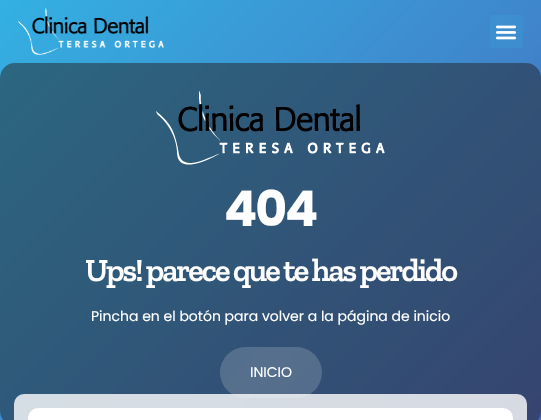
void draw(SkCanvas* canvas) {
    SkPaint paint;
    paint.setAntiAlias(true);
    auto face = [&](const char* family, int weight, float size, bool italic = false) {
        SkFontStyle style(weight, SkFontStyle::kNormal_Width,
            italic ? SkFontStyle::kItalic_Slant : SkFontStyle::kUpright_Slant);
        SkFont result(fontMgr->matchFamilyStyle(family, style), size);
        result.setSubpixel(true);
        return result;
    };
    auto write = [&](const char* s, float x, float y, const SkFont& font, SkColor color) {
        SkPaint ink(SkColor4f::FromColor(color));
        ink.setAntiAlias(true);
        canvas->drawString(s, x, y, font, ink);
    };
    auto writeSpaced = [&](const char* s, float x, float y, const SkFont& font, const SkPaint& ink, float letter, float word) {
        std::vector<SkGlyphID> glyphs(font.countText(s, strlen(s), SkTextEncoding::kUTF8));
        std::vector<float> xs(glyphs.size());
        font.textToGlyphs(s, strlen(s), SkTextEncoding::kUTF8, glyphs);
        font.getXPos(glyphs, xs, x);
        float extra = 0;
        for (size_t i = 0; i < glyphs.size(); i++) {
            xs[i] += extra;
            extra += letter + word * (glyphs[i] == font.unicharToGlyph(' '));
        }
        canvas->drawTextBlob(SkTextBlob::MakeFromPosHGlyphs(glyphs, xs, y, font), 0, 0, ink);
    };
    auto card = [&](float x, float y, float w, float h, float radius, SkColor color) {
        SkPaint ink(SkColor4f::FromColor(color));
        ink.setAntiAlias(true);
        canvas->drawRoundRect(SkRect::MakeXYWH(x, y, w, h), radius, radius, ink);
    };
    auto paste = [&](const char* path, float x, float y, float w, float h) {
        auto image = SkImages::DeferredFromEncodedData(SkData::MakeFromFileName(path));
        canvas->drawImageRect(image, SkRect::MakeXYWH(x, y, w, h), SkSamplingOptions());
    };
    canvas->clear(SK_ColorWHITE);
    {
        const SkColor colors[] = {SkColorSetRGB(51, 179, 227), SkColorSetRGB(72, 102, 188)};
        const float stops[] = {0, 1};
        const SkPoint ends[] = {{20, -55}, {521, 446}};
        paint.setShader(SkGradientShader::MakeLinear(ends, colors, stops, 2, SkTileMode::kClamp));
        paint.setAlpha(255);
    }
    canvas->drawRect(SkRect::MakeXYWH(0, 0, 541, 420), paint);
    paste("pic1.png", 18, 8, 146, 47);
    card(490, 15, 33, 33, 3, SkColorSetARGB(41, 51, 179, 227));
    paste("pic2.png", 495, 25, 22, 15);
    card(0, 63, 541, 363, 15, SkColorSetARGB(128, 33, 33, 33));
    paste("pic3.png", 156, 91, 229, 74);
    auto kFont1 = face("Poppins", 700, 49);
    paint.setShader(nullptr);
    paint.setColor(SK_ColorWHITE);
    writeSpaced("404", 224, 226, kFont1, paint, -2, 0);
    auto kFont2 = face("Zilla Slab", 600, 32.4f);
    writeSpaced("Ups! parece que te has perdido", 85, 281, kFont2, paint, -2, 0);
    auto kFont3 = face("Poppins", 400, 14);
    write("Pincha en el botón para volver a la página de inicio", 91, 321, kFont3, SK_ColorWHITE);
    card(220, 347, 102, 51, 25.5f, SkColorSetARGB(43, 255, 255, 255));
    write("INICIO", 250, 377, kFont3, SK_ColorWHITE);
    card(14, 394, 513, 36, 10, SkColorSetARGB(204, 255, 255, 255));
    card(28, 408, 485, 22, 10, SK_ColorWHITE);
}
